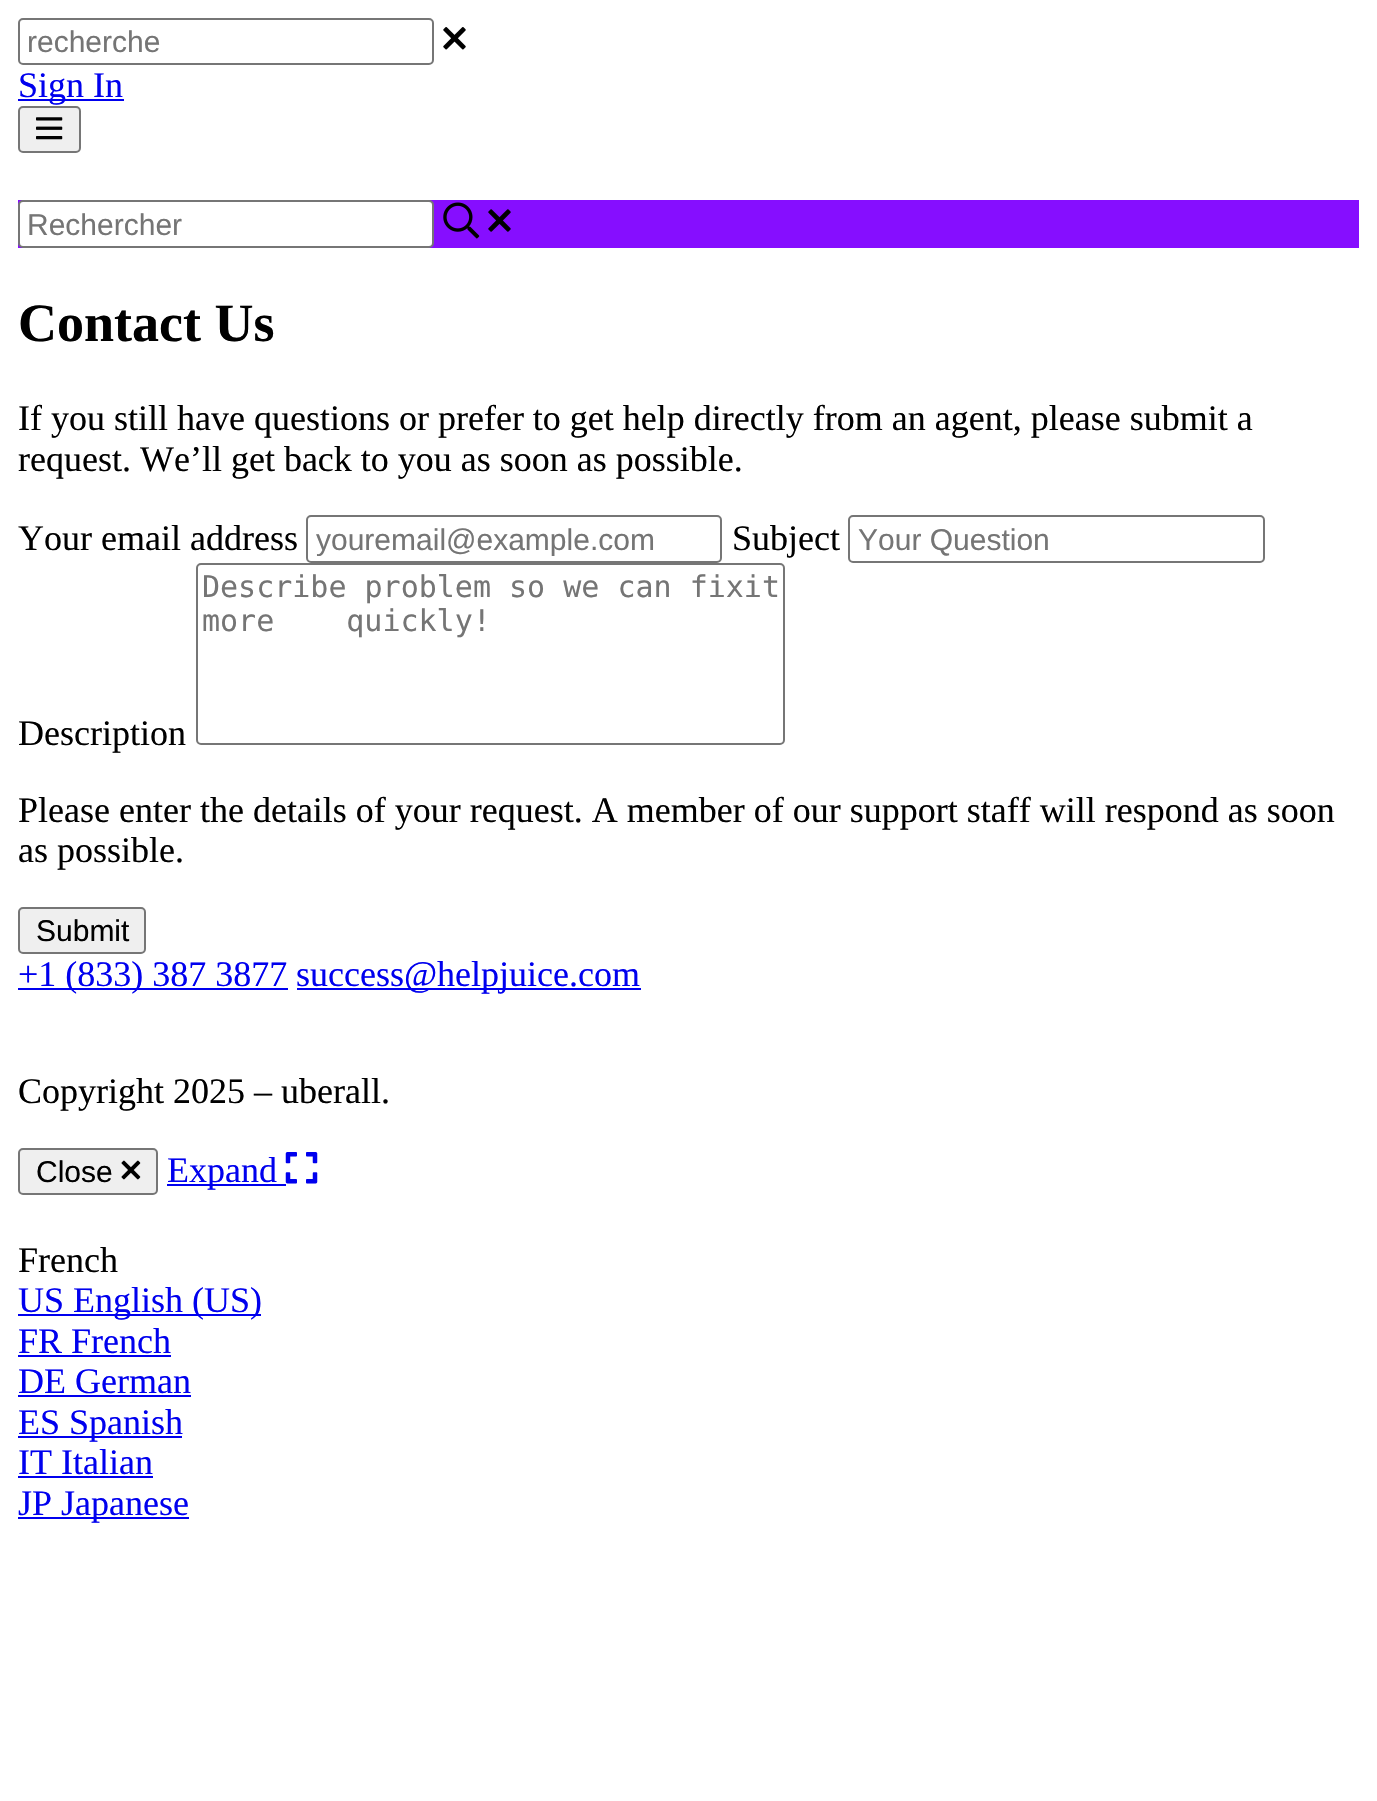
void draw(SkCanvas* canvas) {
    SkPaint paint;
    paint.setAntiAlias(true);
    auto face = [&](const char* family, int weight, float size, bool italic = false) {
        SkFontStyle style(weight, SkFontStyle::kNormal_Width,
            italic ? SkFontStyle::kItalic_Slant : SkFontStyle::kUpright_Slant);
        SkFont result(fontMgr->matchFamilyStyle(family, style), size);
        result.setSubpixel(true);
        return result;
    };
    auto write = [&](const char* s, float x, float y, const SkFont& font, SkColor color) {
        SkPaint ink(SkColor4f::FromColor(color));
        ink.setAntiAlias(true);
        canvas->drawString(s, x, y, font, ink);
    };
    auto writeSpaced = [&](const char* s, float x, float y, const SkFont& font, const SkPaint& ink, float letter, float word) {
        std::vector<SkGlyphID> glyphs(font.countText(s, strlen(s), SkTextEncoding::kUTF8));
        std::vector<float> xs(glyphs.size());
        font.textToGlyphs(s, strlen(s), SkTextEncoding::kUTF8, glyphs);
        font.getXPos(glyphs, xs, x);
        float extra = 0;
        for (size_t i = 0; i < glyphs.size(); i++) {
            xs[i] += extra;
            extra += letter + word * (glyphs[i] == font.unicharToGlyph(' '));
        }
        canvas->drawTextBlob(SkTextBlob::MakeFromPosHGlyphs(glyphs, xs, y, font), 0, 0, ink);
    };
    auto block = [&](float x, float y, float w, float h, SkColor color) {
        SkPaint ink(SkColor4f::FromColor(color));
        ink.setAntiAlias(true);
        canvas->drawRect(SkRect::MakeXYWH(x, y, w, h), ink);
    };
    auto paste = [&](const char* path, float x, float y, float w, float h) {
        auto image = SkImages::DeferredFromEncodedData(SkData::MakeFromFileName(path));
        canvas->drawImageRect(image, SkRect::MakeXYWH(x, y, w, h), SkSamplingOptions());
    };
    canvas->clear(SK_ColorWHITE);
    paint.setStyle(SkPaint::kStroke_Style);
    paint.setStrokeWidth(2);
    paint.setColor(SkColorSetRGB(118, 118, 118));
    canvas->drawRoundRect(SkRect::MakeXYWH(19, 19, 414, 45), 4, 4, paint);
    auto kFont1 = face("Liberation Sans", 400, 30);
    write("recherche", 27, 52, kFont1, SkColorSetRGB(117, 117, 117));
    paste("pic1.png", 443, 27, 23, 23);
    block(18, 99, 106, 2, SkColorSetRGB(0, 0, 238));
    auto kFont2 = face("Liberation Serif", 400, 36);
    write("Sign In", 18, 97, kFont2, SkColorSetRGB(0, 0, 238));
    paint.setStyle(SkPaint::kFill_Style);
    paint.setColor(SkColorSetRGB(239, 239, 239));
    canvas->drawRoundRect(SkRect::MakeXYWH(19, 107, 61, 45), 4, 4, paint);
    paint.setStyle(SkPaint::kStroke_Style);
    paint.setColor(SkColorSetRGB(118, 118, 118));
    canvas->drawRoundRect(SkRect::MakeXYWH(19, 107, 61, 45), 4, 4, paint);
    paste("pic2.png", 36, 117, 27, 23);
    block(18, 200, 1341, 48, SkColorSetRGB(134, 14, 255));
    paint.setStyle(SkPaint::kFill_Style);
    paint.setColor(SK_ColorWHITE);
    canvas->drawRoundRect(SkRect::MakeXYWH(19, 201, 414, 46), 4, 4, paint);
    paint.setStyle(SkPaint::kStroke_Style);
    paint.setColor(SkColorSetRGB(118, 118, 118));
    canvas->drawRoundRect(SkRect::MakeXYWH(19, 201, 414, 46), 4, 4, paint);
    write("Rechercher", 27, 235, kFont1, SkColorSetRGB(117, 117, 117));
    paste("pic3.png", 443, 202, 37, 37);
    paste("pic4.png", 488, 209, 23, 23);
    auto kFont3 = face("Liberation Serif", 700, 54);
    write("Contact Us", 18, 341, kFont3, SK_ColorBLACK);
    write("If you still have questions or prefer to get help directly from an agent, please submit a", 18, 430, kFont2, SK_ColorBLACK);
    write("request. We’ll get back to you as soon as possible.", 18, 471, kFont2, SK_ColorBLACK);
    write("Your email address", 18, 550, kFont2, SK_ColorBLACK);
    canvas->drawRoundRect(SkRect::MakeXYWH(307, 516, 414, 46), 4, 4, paint);
    canvas->save();
    canvas->clipRect(SkRect::MakeXYWH(315, 522, 398, 34));
    write("youremail@example.com", 316, 550, kFont1, SkColorSetRGB(117, 117, 117));
    canvas->restore();
    write("Subject", 732, 550, kFont2, SK_ColorBLACK);
    canvas->drawRoundRect(SkRect::MakeXYWH(849, 516, 415, 46), 4, 4, paint);
    write("Your Question", 858, 550, kFont1, SkColorSetRGB(117, 117, 117));
    canvas->drawRoundRect(SkRect::MakeXYWH(197, 564, 587, 180), 4, 4, paint);
    auto kFont4 = face("DejaVu Sans Mono", 400, 30);
    write("Describe problem so we can fixit", 202, 597, kFont4, SkColorSetRGB(117, 117, 117));
    paint.setStyle(SkPaint::kFill_Style);
    paint.setColor(SkColorSetRGB(117, 117, 117));
    writeSpaced("more quickly!", 202, 631, kFont4, paint, 0, 54);
    write("Description", 18, 745, kFont2, SK_ColorBLACK);
    write("Please enter the details of your request. A member of our support staff will respond as soon", 18, 822, kFont2, SK_ColorBLACK);
    write("as possible.", 18, 862, kFont2, SK_ColorBLACK);
    paint.setColor(SkColorSetRGB(239, 239, 239));
    canvas->drawRoundRect(SkRect::MakeXYWH(19, 908, 126, 45), 4, 4, paint);
    paint.setStyle(SkPaint::kStroke_Style);
    paint.setColor(SkColorSetRGB(118, 118, 118));
    canvas->drawRoundRect(SkRect::MakeXYWH(19, 908, 126, 45), 4, 4, paint);
    write("Submit", 36, 941, kFont1, SK_ColorBLACK);
    block(18, 988, 270, 2, SkColorSetRGB(0, 0, 238));
    write("+1 (833) 387 3877", 18, 986, kFont2, SkColorSetRGB(0, 0, 238));
    block(297, 988, 344, 2, SkColorSetRGB(0, 0, 238));
    write("success@helpjuice.com", 296, 986, kFont2, SkColorSetRGB(0, 0, 238));
    write("Copyright 2025 – uberall.", 18, 1103, kFont2, SK_ColorBLACK);
    paint.setStyle(SkPaint::kFill_Style);
    paint.setColor(SkColorSetRGB(239, 239, 239));
    canvas->drawRoundRect(SkRect::MakeXYWH(19, 1149, 138, 45), 4, 4, paint);
    paint.setStyle(SkPaint::kStroke_Style);
    paint.setColor(SkColorSetRGB(118, 118, 118));
    canvas->drawRoundRect(SkRect::MakeXYWH(19, 1149, 138, 45), 4, 4, paint);
    write("Close", 36, 1182, kFont1, SK_ColorBLACK);
    paste("pic5.png", 121, 1160, 20, 20);
    block(167, 1184, 119, 2, SkColorSetRGB(0, 0, 238));
    write("Expand", 167, 1182, kFont2, SkColorSetRGB(0, 0, 238));
    paste("pic6.png", 285, 1152, 33, 32);
    write("French", 18, 1272, kFont2, SK_ColorBLACK);
    block(18, 1314, 243, 2, SkColorSetRGB(0, 0, 238));
    write("US English (US)", 18, 1312, kFont2, SkColorSetRGB(0, 0, 238));
    write("FR French", 18, 1353, kFont2, SkColorSetRGB(0, 0, 238));
    block(18, 1355, 153, 2, SkColorSetRGB(0, 0, 238));
    write("DE German", 18, 1393, kFont2, SkColorSetRGB(0, 0, 238));
    block(18, 1395, 173, 2, SkColorSetRGB(0, 0, 238));
    block(18, 1436, 164, 2, SkColorSetRGB(0, 0, 238));
    write("ES Spanish", 18, 1434, kFont2, SkColorSetRGB(0, 0, 238));
    write("IT Italian", 18, 1474, kFont2, SkColorSetRGB(0, 0, 238));
    block(18, 1476, 135, 2, SkColorSetRGB(0, 0, 238));
    block(18, 1517, 171, 2, SkColorSetRGB(0, 0, 238));
    write("JP Japanese", 18, 1515, kFont2, SkColorSetRGB(0, 0, 238));
}
